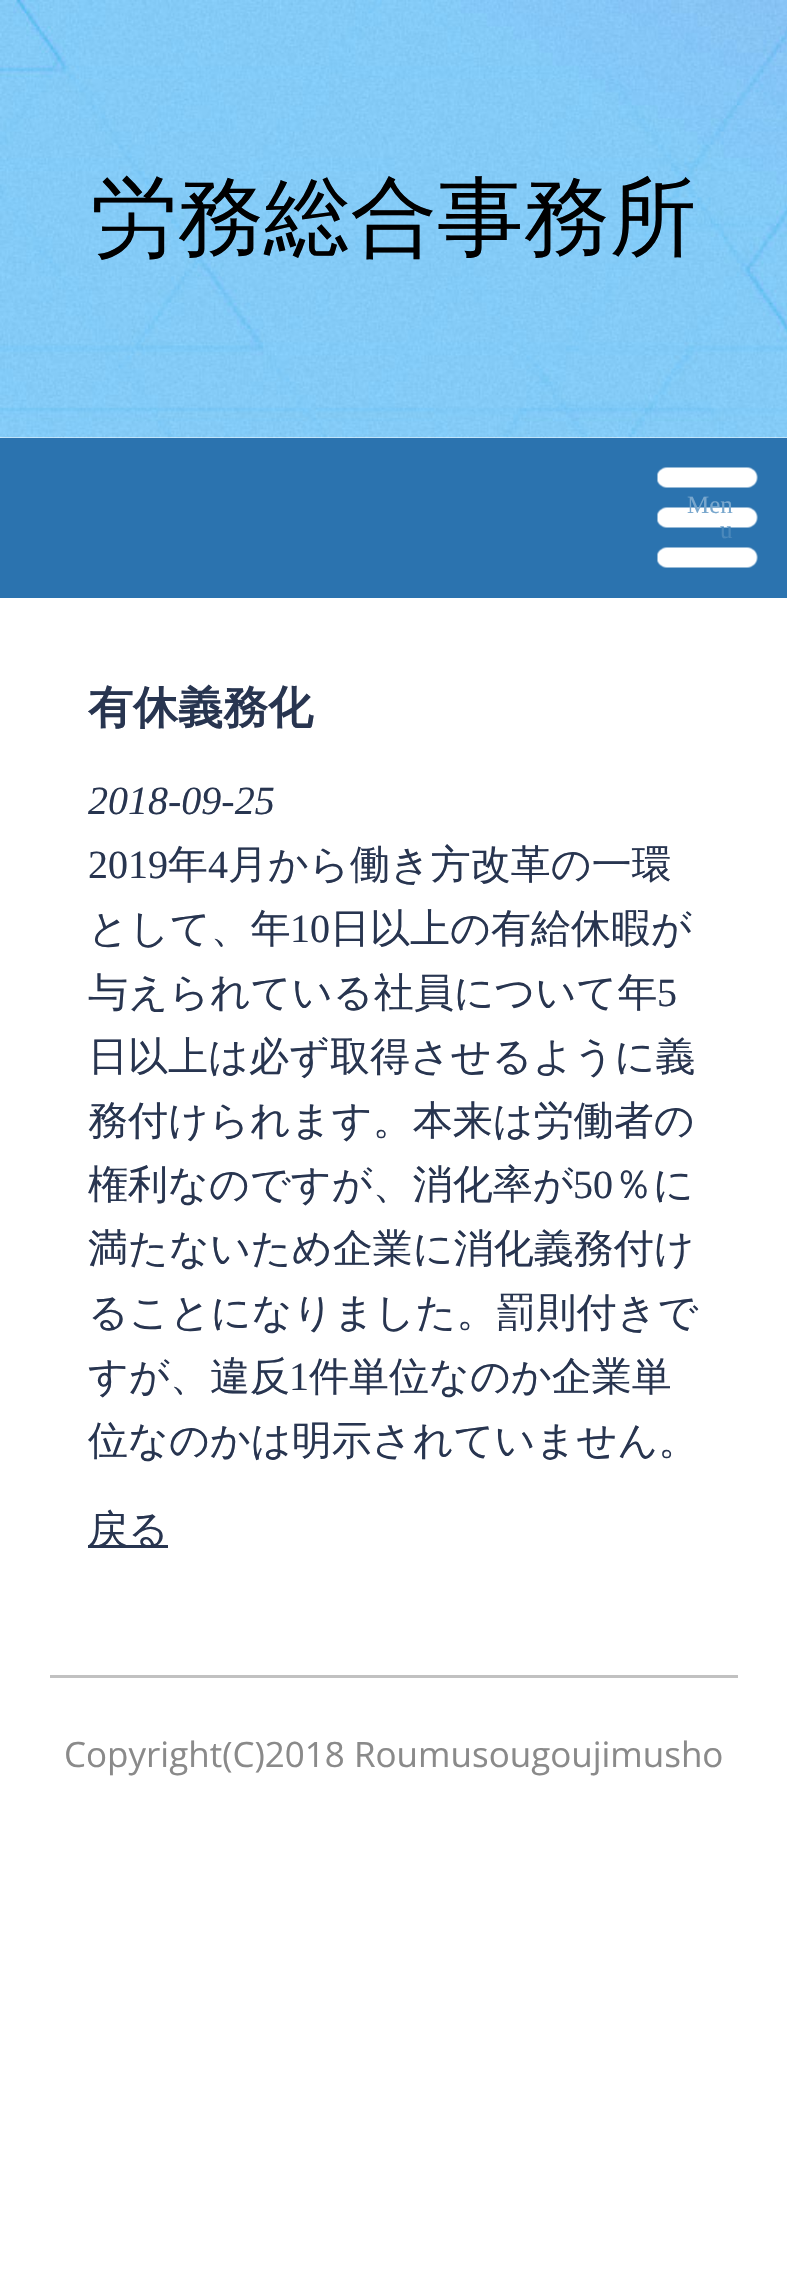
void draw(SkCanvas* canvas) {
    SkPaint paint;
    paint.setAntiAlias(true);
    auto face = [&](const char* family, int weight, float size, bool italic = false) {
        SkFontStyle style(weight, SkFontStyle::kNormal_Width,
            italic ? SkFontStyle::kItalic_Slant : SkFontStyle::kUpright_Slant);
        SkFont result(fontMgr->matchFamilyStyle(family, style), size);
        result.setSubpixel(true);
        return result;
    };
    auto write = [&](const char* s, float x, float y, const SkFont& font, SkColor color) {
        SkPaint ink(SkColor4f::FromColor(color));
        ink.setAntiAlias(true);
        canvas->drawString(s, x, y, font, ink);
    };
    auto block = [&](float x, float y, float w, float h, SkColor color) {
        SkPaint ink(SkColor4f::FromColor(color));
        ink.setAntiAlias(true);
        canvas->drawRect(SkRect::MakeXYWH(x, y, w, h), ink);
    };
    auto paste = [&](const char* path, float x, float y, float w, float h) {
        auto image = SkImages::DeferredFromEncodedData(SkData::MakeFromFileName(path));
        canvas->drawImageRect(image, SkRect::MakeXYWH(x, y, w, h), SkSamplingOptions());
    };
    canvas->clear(SK_ColorWHITE);
    paste("pic1.png", 0, 0, 787, 438);
    auto kFont1 = face("WenQuanYi Zen Hei", 500, 86.5f);
    write("労務総合事務所", 91, 247, kFont1, SK_ColorBLACK);
    block(0, 438, 787, 160, SkColorSetRGB(43, 115, 175));
    paste("pic2.png", 657, 467, 101, 101);
    auto kFont2 = face("Liberation Serif", 400, 25);
    write("Men", 687, 513, kFont2, SkColorSetRGB(121, 167, 205));
    write("u", 720, 538, kFont2, SkColorSetRGB(74, 136, 187));
    block(50, 1675, 688, 3, SkColorSetRGB(193, 193, 193));
    auto kFont3 = face("WenQuanYi Zen Hei", 700, 45);
    write("有休義務化", 88, 723, kFont3, SkColorSetRGB(40, 53, 80));
    auto kFont4 = face("Liberation Serif", 400, 40, true);
    write("2018-09-25", 88, 814, kFont4, SkColorSetRGB(40, 53, 80));
    auto kFont5 = face("Liberation Serif", 400, 40);
    write("2019", 88, 878, kFont5, SkColorSetRGB(40, 53, 80));
    auto kFont6 = face("WenQuanYi Zen Hei", 500, 40);
    write("年", 168, 878, kFont6, SkColorSetRGB(40, 53, 80));
    write("4", 208, 878, kFont5, SkColorSetRGB(40, 53, 80));
    write("月から働き方改革の一環", 228, 878, kFont6, SkColorSetRGB(40, 53, 80));
    write("として、年", 88, 942, kFont6, SkColorSetRGB(40, 53, 80));
    write("10", 290, 942, kFont5, SkColorSetRGB(40, 53, 80));
    write("日以上の有給休暇が", 330, 942, kFont6, SkColorSetRGB(40, 53, 80));
    write("与えられている社員について年", 88, 1006, kFont6, SkColorSetRGB(40, 53, 80));
    write("5", 657, 1006, kFont5, SkColorSetRGB(40, 53, 80));
    write("日以上は必ず取得させるように義", 88, 1070, kFont6, SkColorSetRGB(40, 53, 80));
    write("務付けられます。本来は労働者の", 88, 1134, kFont6, SkColorSetRGB(40, 53, 80));
    write("権利なのですが、消化率が", 88, 1198, kFont6, SkColorSetRGB(40, 53, 80));
    write("50", 573, 1198, kFont5, SkColorSetRGB(40, 53, 80));
    write("％に", 613, 1198, kFont6, SkColorSetRGB(40, 53, 80));
    write("満たないため企業に消化義務付け", 88, 1262, kFont6, SkColorSetRGB(40, 53, 80));
    write("ることになりました。罰則付きで", 88, 1326, kFont6, SkColorSetRGB(40, 53, 80));
    write("すが、違反", 88, 1390, kFont6, SkColorSetRGB(40, 53, 80));
    write("1", 289, 1390, kFont5, SkColorSetRGB(40, 53, 80));
    write("件単位なのか企業単", 309, 1390, kFont6, SkColorSetRGB(40, 53, 80));
    write("位なのかは明示されていません。", 88, 1454, kFont6, SkColorSetRGB(40, 53, 80));
    block(88, 1545, 80, 3, SkColorSetRGB(40, 53, 80));
    write("戻る", 88, 1543, kFont6, SkColorSetRGB(40, 53, 80));
    auto kFont7 = face("Open Sans", 400, 35);
    write("Copyright(C)2018 Roumusougoujimusho", 64, 1767, kFont7, SkColorSetRGB(138, 138, 138));
}
